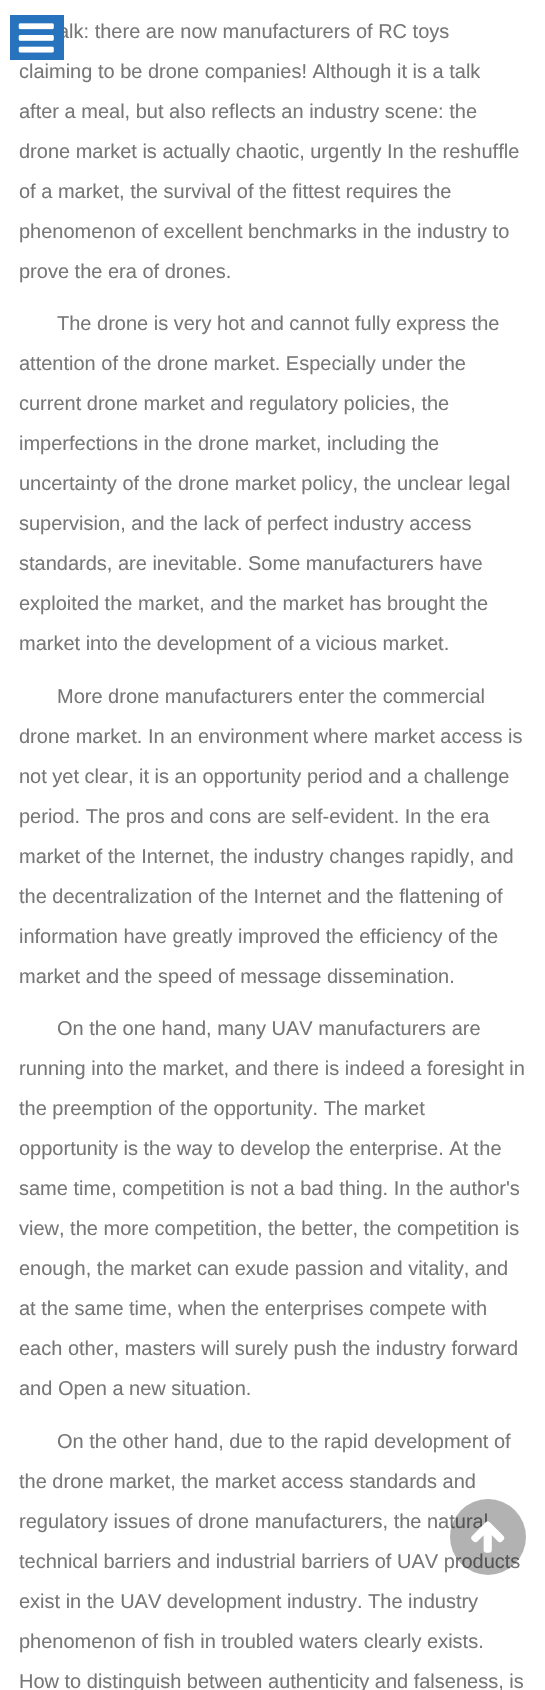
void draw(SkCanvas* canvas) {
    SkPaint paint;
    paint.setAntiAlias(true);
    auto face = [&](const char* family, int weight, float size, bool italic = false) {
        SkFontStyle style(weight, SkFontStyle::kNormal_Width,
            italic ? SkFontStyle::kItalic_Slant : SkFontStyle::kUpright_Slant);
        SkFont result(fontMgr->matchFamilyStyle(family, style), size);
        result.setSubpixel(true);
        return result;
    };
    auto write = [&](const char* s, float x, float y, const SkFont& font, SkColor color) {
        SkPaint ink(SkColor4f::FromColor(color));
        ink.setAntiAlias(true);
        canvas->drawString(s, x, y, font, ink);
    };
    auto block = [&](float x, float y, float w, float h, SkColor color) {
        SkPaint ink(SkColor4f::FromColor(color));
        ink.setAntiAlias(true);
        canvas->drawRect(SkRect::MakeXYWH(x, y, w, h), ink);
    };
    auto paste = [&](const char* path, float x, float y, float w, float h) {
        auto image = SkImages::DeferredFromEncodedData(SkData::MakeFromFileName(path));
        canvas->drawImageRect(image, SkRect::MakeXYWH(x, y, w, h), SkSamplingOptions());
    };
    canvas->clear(SK_ColorWHITE);
    auto kFont1 = face("Liberation Sans", 400, 20);
    write("alk: there are now manufacturers of RC toys", 58, 38, kFont1, SkColorSetRGB(119, 119, 119));
    block(10, 15, 54, 45, SkColorSetRGB(39, 115, 190));
    paste("pic1.png", 18, 23, 36, 30);
    write("claiming to be drone companies! Although it is a talk", 19, 78, kFont1, SkColorSetRGB(119, 119, 119));
    write("after a meal, but also reflects an industry scene: the", 19, 118, kFont1, SkColorSetRGB(119, 119, 119));
    write("drone market is actually chaotic, urgently In the reshuffle", 19, 158, kFont1, SkColorSetRGB(119, 119, 119));
    write("of a market, the survival of the fittest requires the", 19, 198, kFont1, SkColorSetRGB(119, 119, 119));
    write("phenomenon of excellent benchmarks in the industry to", 19, 238, kFont1, SkColorSetRGB(119, 119, 119));
    write("prove the era of drones.", 19, 278, kFont1, SkColorSetRGB(119, 119, 119));
    write("The drone is very hot and cannot fully express the", 57, 330, kFont1, SkColorSetRGB(119, 119, 119));
    write("attention of the drone market. Especially under the", 19, 370, kFont1, SkColorSetRGB(119, 119, 119));
    write("current drone market and regulatory policies, the", 19, 410, kFont1, SkColorSetRGB(119, 119, 119));
    write("imperfections in the drone market, including the", 19, 450, kFont1, SkColorSetRGB(119, 119, 119));
    write("uncertainty of the drone market policy, the unclear legal", 19, 490, kFont1, SkColorSetRGB(119, 119, 119));
    write("supervision, and the lack of perfect industry access", 19, 530, kFont1, SkColorSetRGB(119, 119, 119));
    write("standards, are inevitable. Some manufacturers have", 19, 570, kFont1, SkColorSetRGB(119, 119, 119));
    write("exploited the market, and the market has brought the", 19, 610, kFont1, SkColorSetRGB(119, 119, 119));
    write("market into the development of a vicious market.", 19, 650, kFont1, SkColorSetRGB(119, 119, 119));
    write("More drone manufacturers enter the commercial", 57, 703, kFont1, SkColorSetRGB(119, 119, 119));
    write("drone market. In an environment where market access is", 19, 743, kFont1, SkColorSetRGB(119, 119, 119));
    write("not yet clear, it is an opportunity period and a challenge", 19, 783, kFont1, SkColorSetRGB(119, 119, 119));
    write("period. The pros and cons are self-evident. In the era", 19, 823, kFont1, SkColorSetRGB(119, 119, 119));
    write("market of the Internet, the industry changes rapidly, and", 19, 863, kFont1, SkColorSetRGB(119, 119, 119));
    write("the decentralization of the Internet and the flattening of", 19, 903, kFont1, SkColorSetRGB(119, 119, 119));
    write("information have greatly improved the efficiency of the", 19, 943, kFont1, SkColorSetRGB(119, 119, 119));
    write("market and the speed of message dissemination.", 19, 983, kFont1, SkColorSetRGB(119, 119, 119));
    write("On the one hand, many UAV manufacturers are", 57, 1035, kFont1, SkColorSetRGB(119, 119, 119));
    write("running into the market, and there is indeed a foresight in", 19, 1075, kFont1, SkColorSetRGB(119, 119, 119));
    write("the preemption of the opportunity. The market", 19, 1115, kFont1, SkColorSetRGB(119, 119, 119));
    write("opportunity is the way to develop the enterprise. At the", 19, 1155, kFont1, SkColorSetRGB(119, 119, 119));
    write("same time, competition is not a bad thing. In the author's", 19, 1195, kFont1, SkColorSetRGB(119, 119, 119));
    write("view, the more competition, the better, the competition is", 19, 1235, kFont1, SkColorSetRGB(119, 119, 119));
    write("enough, the market can exude passion and vitality, and", 19, 1275, kFont1, SkColorSetRGB(119, 119, 119));
    write("at the same time, when the enterprises compete with", 19, 1315, kFont1, SkColorSetRGB(119, 119, 119));
    write("each other, masters will surely push the industry forward", 19, 1355, kFont1, SkColorSetRGB(119, 119, 119));
    write("and Open a new situation.", 19, 1395, kFont1, SkColorSetRGB(119, 119, 119));
    write("On the other hand, due to the rapid development of", 57, 1448, kFont1, SkColorSetRGB(119, 119, 119));
    write("the drone market, the market access standards and", 19, 1488, kFont1, SkColorSetRGB(119, 119, 119));
    write("regulatory issues of drone manufacturers, the natural", 19, 1528, kFont1, SkColorSetRGB(119, 119, 119));
    write("technical barriers and industrial barriers of UAV products", 19, 1568, kFont1, SkColorSetRGB(119, 119, 119));
    write("exist in the UAV development industry. The industry", 19, 1608, kFont1, SkColorSetRGB(119, 119, 119));
    write("phenomenon of fish in troubled waters clearly exists.", 19, 1648, kFont1, SkColorSetRGB(119, 119, 119));
    write("How to distinguish between authenticity and falseness, is", 19, 1688, kFont1, SkColorSetRGB(119, 119, 119));
    paint.setColor(SkColorSetARGB(77, 0, 0, 0));
    canvas->drawCircle(488, 1537, 38, paint);
    paste("pic2.png", 471, 1521, 34, 32);
}
